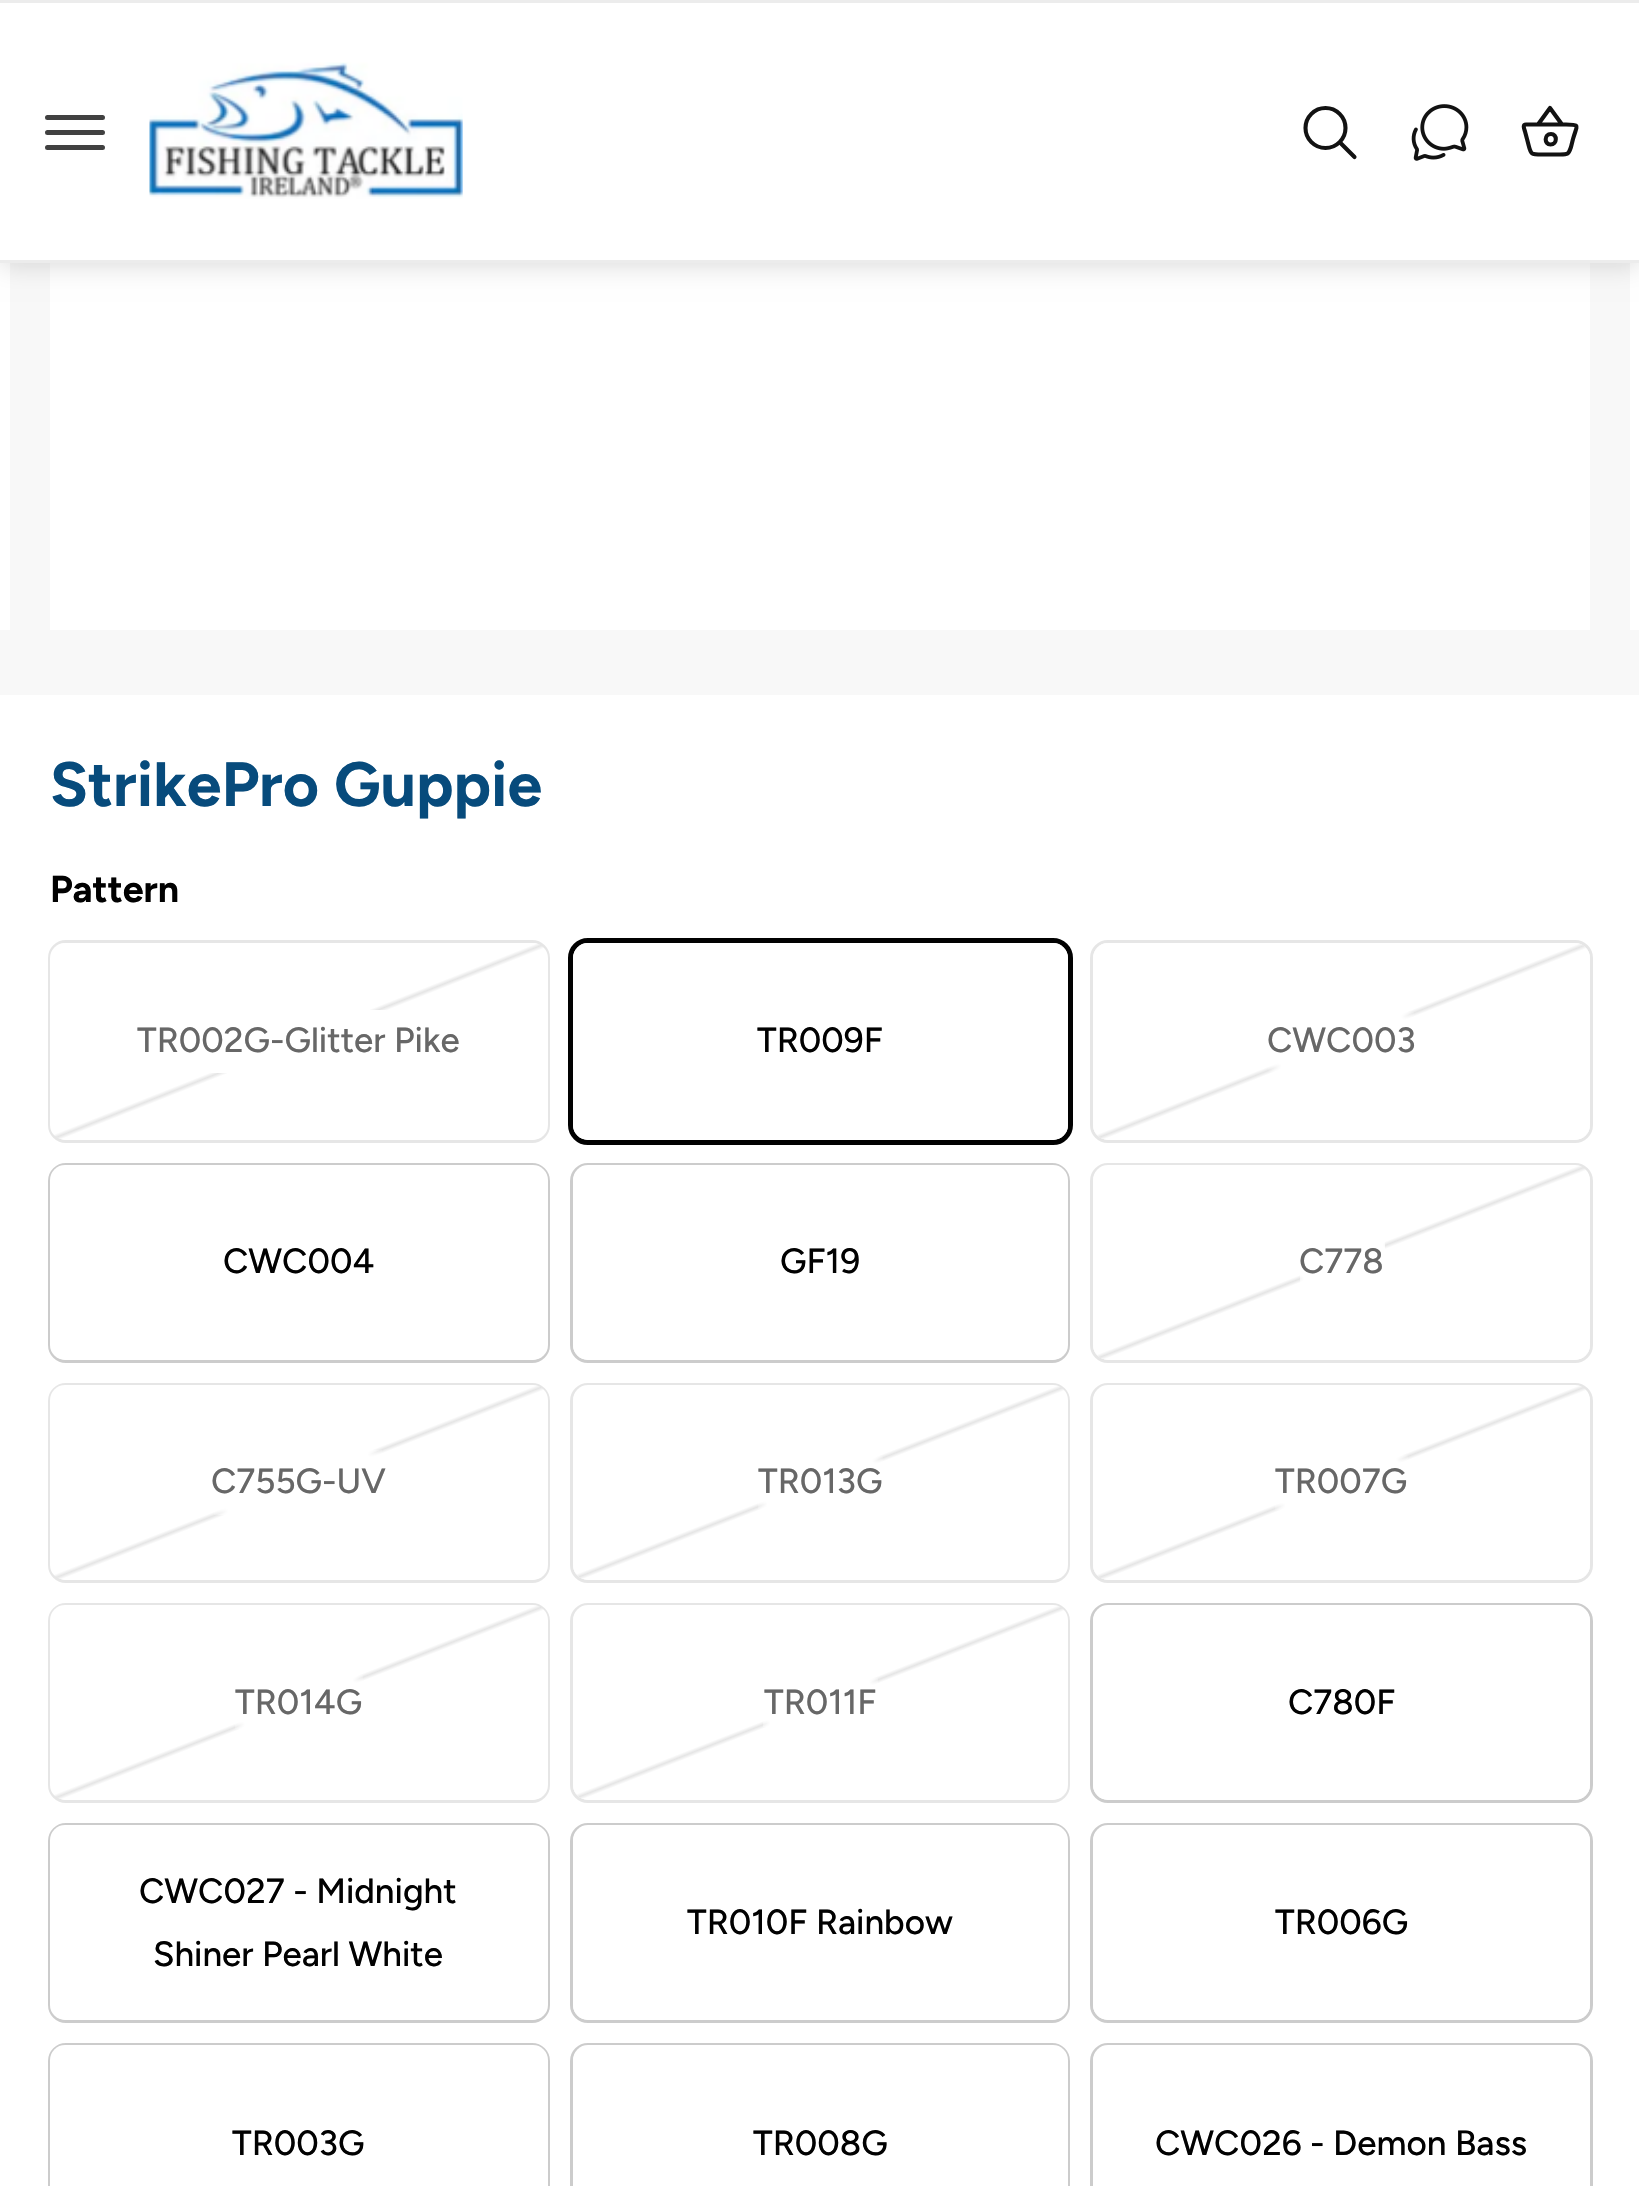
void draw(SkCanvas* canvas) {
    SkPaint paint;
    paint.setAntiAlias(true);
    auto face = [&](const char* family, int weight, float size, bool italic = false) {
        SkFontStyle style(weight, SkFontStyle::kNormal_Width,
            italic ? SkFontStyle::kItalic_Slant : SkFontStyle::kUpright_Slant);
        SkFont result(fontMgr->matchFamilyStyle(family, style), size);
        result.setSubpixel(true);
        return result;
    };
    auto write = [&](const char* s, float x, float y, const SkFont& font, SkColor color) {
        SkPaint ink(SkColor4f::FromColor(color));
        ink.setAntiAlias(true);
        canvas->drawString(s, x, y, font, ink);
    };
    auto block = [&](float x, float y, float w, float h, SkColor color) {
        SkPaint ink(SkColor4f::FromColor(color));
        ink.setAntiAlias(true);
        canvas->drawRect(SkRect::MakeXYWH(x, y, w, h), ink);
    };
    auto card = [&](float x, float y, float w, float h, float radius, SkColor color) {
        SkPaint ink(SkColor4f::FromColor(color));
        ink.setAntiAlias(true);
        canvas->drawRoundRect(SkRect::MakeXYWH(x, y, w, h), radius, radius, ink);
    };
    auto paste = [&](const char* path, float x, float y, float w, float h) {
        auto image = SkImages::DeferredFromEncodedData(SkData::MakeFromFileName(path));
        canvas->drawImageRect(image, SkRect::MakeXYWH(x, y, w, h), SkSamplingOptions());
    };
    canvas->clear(SkColorSetRGB(248, 248, 248));
    block(0, 263, 10, 367, SK_ColorWHITE);
    block(50, 263, 1540, 367, SK_ColorWHITE);
    block(1630, 263, 9, 367, SK_ColorWHITE);
    paint.setColor(SkColorSetARGB(38, 0, 0, 0));
    paint.setMaskFilter(SkMaskFilter::MakeBlur(kNormal_SkBlurStyle, 12.5f));
    canvas->drawRect(SkRect::MakeXYWH(0, 3, 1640, 262), paint);
    paint.setMaskFilter(nullptr);
    block(0, 3, 1639, 257, SK_ColorWHITE);
    block(0, 0, 1639, 3, SkColorSetRGB(236, 236, 236));
    block(0, 260, 1639, 3, SkColorSetRGB(236, 236, 236));
    paint.setStyle(SkPaint::kStroke_Style);
    paint.setStrokeWidth(5);
    paint.setStrokeCap(SkPaint::kRound_Cap);
    paint.setColor(SkColorSetRGB(65, 65, 65));
    canvas->drawPath(SkPathBuilder().moveTo(47.5f, 117.5f).lineTo(102.5f, 117.5f).moveTo(47.5f, 132.5f).lineTo(102.5f, 132.5f).moveTo(47.5f, 147.5f).lineTo(102.5f, 147.5f).detach(), paint);
    paste("pic1.png", 149, 62, 314, 137);
    paint.setStrokeWidth(4.1f);
    paint.setStrokeCap(SkPaint::kButt_Cap);
    paint.setColor(SkColorSetRGB(18, 18, 18));
    canvas->drawPath(SkPathBuilder().moveTo(1325.5f, 108).cubicTo(1314.5f, 108, 1305.5f, 117, 1305.5f, 128).cubicTo(1305.5f, 139, 1314.5f, 148, 1325.5f, 148).cubicTo(1336.5f, 148, 1345.5f, 139, 1345.5f, 128).cubicTo(1345.5f, 117, 1336.5f, 108, 1325.5f, 108).close().detach(), paint);
    paint.setStrokeCap(SkPaint::kRound_Cap);
    canvas->drawPath(SkPathBuilder().moveTo(1340.5f, 143).lineTo(1354.5f, 157).detach(), paint);
    paste("pic2.png", 1411, 104, 58, 57);
    paint.setStrokeCap(SkPaint::kButt_Cap);
    paint.setStrokeJoin(SkPaint::kRound_Join);
    canvas->drawPath(SkPathBuilder().moveTo(1526, 124.5f).cubicTo(1522, 124.5f, 1524.5f, 129.5f, 1525, 131.5f).lineTo(1527, 139).cubicTo(1531.5f, 155.5f, 1528.5f, 154.5f, 1545, 154.5f).lineTo(1560, 154.5f).cubicTo(1568, 154.5f, 1568.5f, 154.5f, 1571, 147).lineTo(1573, 139).cubicTo(1577, 125, 1580.5f, 124.5f, 1566, 124.5f).close().moveTo(1550.5f, 144.5f).cubicTo(1544, 144.5f, 1544, 134, 1551, 134).cubicTo(1557.5f, 134, 1557.5f, 144.5f, 1550.5f, 144.5f).close().moveTo(1538, 124.5f).lineTo(1550, 108).lineTo(1562, 124.5f).detach(), paint);
    block(0, 695, 1639, 1491, SK_ColorWHITE);
    auto kFont1 = face("Figtree", 700, 62.5f);
    write("StrikePro Guppie", 50, 806, kFont1, SkColorSetRGB(7, 75, 124));
    auto kFont2 = face("Figtree", 700, 37.5f);
    write("Pattern", 50, 902, kFont2, SkColorSetRGB(1, 1, 1));
    paint.setStrokeWidth(3);
    paint.setStrokeJoin(SkPaint::kMiter_Join);
    paint.setColor(SkColorSetRGB(230, 230, 230));
    canvas->drawRoundRect(SkRect::MakeXYWH(49.5f, 941.5f, 499, 200), 16.5f, 16.5f, paint);
    card(50, 943, 498, 197, 15, SK_ColorWHITE);
    paint.setStyle(SkPaint::kFill_Style);
    {
        const SkColor colors[] = {SkColorSetARGB(0, 1, 1, 1), SkColorSetARGB(26, 1, 1, 1), SkColorSetARGB(0, 1, 1, 1)};
        const float stops[] = {0.49f, 0.5f, 0.51f};
        const SkPoint ends[] = {{366, 1212}, {231, 871}};
        paint.setShader(SkGradientShader::MakeLinear(ends, colors, stops, 3, SkTileMode::kClamp));
        paint.setAlpha(255);
    }
    canvas->drawRoundRect(SkRect::MakeXYWH(50, 943, 498, 197), 15, 15, paint);
    {
        const SkColor colors[] = {SK_ColorWHITE, SK_ColorWHITE, SkColorSetARGB(0, 255, 255, 255)};
        const float stops[] = {0, 0.8f, 1};
        paint.setShader(SkGradientShader::MakeRadial({299, 1041}, 164, colors, stops, 3, SkTileMode::kClamp));
        paint.setAlpha(255);
    }
    canvas->drawRect(SkRect::MakeXYWH(211, 1010, 175, 63), paint);
    auto kFont3 = face("Figtree", 500, 35);
    write("TR002G-Glitter Pike", 137, 1052, kFont3, SkColorSetRGB(103, 103, 103));
    paint.setStyle(SkPaint::kStroke_Style);
    paint.setStrokeWidth(5);
    paint.setShader(nullptr);
    paint.setColor(SkColorSetRGB(1, 1, 1));
    canvas->drawRoundRect(SkRect::MakeXYWH(570.5f, 940.5f, 500, 202), 17.5f, 17.5f, paint);
    card(573, 943, 495, 197, 15, SK_ColorWHITE);
    write("TR009F", 757, 1052, kFont3, SkColorSetRGB(1, 1, 1));
    paint.setStrokeWidth(3);
    paint.setColor(SkColorSetRGB(230, 230, 230));
    canvas->drawRoundRect(SkRect::MakeXYWH(1091.5f, 941.5f, 500, 200), 16.5f, 16.5f, paint);
    card(1093, 943, 497, 197, 15, SK_ColorWHITE);
    paint.setStyle(SkPaint::kFill_Style);
    {
        const SkColor colors[] = {SkColorSetARGB(0, 1, 1, 1), SkColorSetARGB(26, 1, 1, 1), SkColorSetARGB(0, 1, 1, 1)};
        const float stops[] = {0.49f, 0.5f, 0.51f};
        const SkPoint ends[] = {{1409, 1212}, {1274, 871}};
        paint.setShader(SkGradientShader::MakeLinear(ends, colors, stops, 3, SkTileMode::kClamp));
        paint.setAlpha(255);
    }
    canvas->drawRoundRect(SkRect::MakeXYWH(1093, 943, 497, 197), 15, 15, paint);
    {
        const SkColor colors[] = {SK_ColorWHITE, SK_ColorWHITE, SkColorSetARGB(0, 255, 255, 255)};
        const float stops[] = {0, 0.8f, 1};
        paint.setShader(SkGradientShader::MakeRadial({1341, 1041}, 80, colors, stops, 3, SkTileMode::kClamp));
        paint.setAlpha(255);
    }
    canvas->drawRect(SkRect::MakeXYWH(1268, 1012, 146, 60), paint);
    write("CWC003", 1267, 1052, kFont3, SkColorSetRGB(103, 103, 103));
    paint.setStyle(SkPaint::kStroke_Style);
    paint.setShader(nullptr);
    paint.setColor(SkColorSetRGB(204, 204, 204));
    canvas->drawRoundRect(SkRect::MakeXYWH(49.5f, 1164.5f, 499, 197), 16.5f, 16.5f, paint);
    card(50, 1165, 498, 195, 15, SK_ColorWHITE);
    write("CWC004", 223, 1273, kFont3, SkColorSetRGB(1, 1, 1));
    canvas->drawRoundRect(SkRect::MakeXYWH(571.5f, 1164.5f, 497, 197), 16.5f, 16.5f, paint);
    card(573, 1165, 495, 195, 15, SK_ColorWHITE);
    write("GF19", 780, 1273, kFont3, SkColorSetRGB(1, 1, 1));
    paint.setColor(SkColorSetRGB(230, 230, 230));
    canvas->drawRoundRect(SkRect::MakeXYWH(1091.5f, 1164.5f, 500, 197), 16.5f, 16.5f, paint);
    card(1093, 1165, 497, 195, 15, SK_ColorWHITE);
    paint.setStyle(SkPaint::kFill_Style);
    {
        const SkColor colors[] = {SkColorSetARGB(0, 1, 1, 1), SkColorSetARGB(26, 1, 1, 1), SkColorSetARGB(0, 1, 1, 1)};
        const float stops[] = {0.49f, 0.5f, 0.51f};
        const SkPoint ends[] = {{1408, 1432}, {1275, 1093}};
        paint.setShader(SkGradientShader::MakeLinear(ends, colors, stops, 3, SkTileMode::kClamp));
        paint.setAlpha(255);
    }
    canvas->drawRoundRect(SkRect::MakeXYWH(1093, 1165, 497, 195), 15, 15, paint);
    {
        const SkColor colors[] = {SK_ColorWHITE, SK_ColorWHITE, SkColorSetARGB(0, 255, 255, 255)};
        const float stops[] = {0, 0.8f, 1};
        paint.setShader(SkGradientShader::MakeRadial({1343, 1261}, 53, colors, stops, 3, SkTileMode::kClamp));
        paint.setAlpha(255);
    }
    canvas->drawRect(SkRect::MakeXYWH(1300, 1242, 85, 40), paint);
    write("C778", 1299, 1273, kFont3, SkColorSetRGB(103, 103, 103));
    paint.setStyle(SkPaint::kStroke_Style);
    paint.setShader(nullptr);
    paint.setColor(SkColorSetRGB(230, 230, 230));
    canvas->drawRoundRect(SkRect::MakeXYWH(49.5f, 1384.5f, 499, 197), 16.5f, 16.5f, paint);
    card(50, 1385, 498, 195, 15, SK_ColorWHITE);
    paint.setStyle(SkPaint::kFill_Style);
    {
        const SkColor colors[] = {SkColorSetARGB(0, 1, 1, 1), SkColorSetARGB(26, 1, 1, 1), SkColorSetARGB(0, 1, 1, 1)};
        const float stops[] = {0.49f, 0.5f, 0.51f};
        const SkPoint ends[] = {{365, 1652}, {232, 1313}};
        paint.setShader(SkGradientShader::MakeLinear(ends, colors, stops, 3, SkTileMode::kClamp));
        paint.setAlpha(255);
    }
    canvas->drawRoundRect(SkRect::MakeXYWH(50, 1385, 498, 195), 15, 15, paint);
    {
        const SkColor colors[] = {SK_ColorWHITE, SK_ColorWHITE, SkColorSetARGB(0, 255, 255, 255)};
        const float stops[] = {0, 0.8f, 1};
        paint.setShader(SkGradientShader::MakeRadial({298, 1483}, 93, colors, stops, 3, SkTileMode::kClamp));
        paint.setAlpha(255);
    }
    canvas->drawRect(SkRect::MakeXYWH(214, 1450, 168, 65), paint);
    write("C755G-UV", 211, 1493, kFont3, SkColorSetRGB(103, 103, 103));
    paint.setStyle(SkPaint::kStroke_Style);
    paint.setShader(nullptr);
    paint.setColor(SkColorSetRGB(230, 230, 230));
    canvas->drawRoundRect(SkRect::MakeXYWH(571.5f, 1384.5f, 497, 197), 16.5f, 16.5f, paint);
    card(573, 1385, 495, 195, 15, SK_ColorWHITE);
    paint.setStyle(SkPaint::kFill_Style);
    {
        const SkColor colors[] = {SkColorSetARGB(0, 1, 1, 1), SkColorSetARGB(26, 1, 1, 1), SkColorSetARGB(0, 1, 1, 1)};
        const float stops[] = {0.49f, 0.5f, 0.51f};
        const SkPoint ends[] = {{886, 1651}, {754, 1314}};
        paint.setShader(SkGradientShader::MakeLinear(ends, colors, stops, 3, SkTileMode::kClamp));
        paint.setAlpha(255);
    }
    canvas->drawRoundRect(SkRect::MakeXYWH(573, 1385, 495, 195), 15, 15, paint);
    {
        const SkColor colors[] = {SK_ColorWHITE, SK_ColorWHITE, SkColorSetARGB(0, 255, 255, 255)};
        const float stops[] = {0, 0.8f, 1};
        paint.setShader(SkGradientShader::MakeRadial({820, 1483}, 70, colors, stops, 3, SkTileMode::kClamp));
        paint.setAlpha(255);
    }
    canvas->drawRect(SkRect::MakeXYWH(758, 1456, 125, 53), paint);
    write("TR013G", 758, 1493, kFont3, SkColorSetRGB(103, 103, 103));
    paint.setStyle(SkPaint::kStroke_Style);
    paint.setShader(nullptr);
    paint.setColor(SkColorSetRGB(230, 230, 230));
    canvas->drawRoundRect(SkRect::MakeXYWH(1091.5f, 1384.5f, 500, 197), 16.5f, 16.5f, paint);
    card(1093, 1385, 497, 195, 15, SK_ColorWHITE);
    paint.setStyle(SkPaint::kFill_Style);
    {
        const SkColor colors[] = {SkColorSetARGB(0, 1, 1, 1), SkColorSetARGB(26, 1, 1, 1), SkColorSetARGB(0, 1, 1, 1)};
        const float stops[] = {0.49f, 0.5f, 0.51f};
        const SkPoint ends[] = {{1408, 1652}, {1275, 1313}};
        paint.setShader(SkGradientShader::MakeLinear(ends, colors, stops, 3, SkTileMode::kClamp));
        paint.setAlpha(255);
    }
    canvas->drawRoundRect(SkRect::MakeXYWH(1093, 1385, 497, 195), 15, 15, paint);
    {
        const SkColor colors[] = {SK_ColorWHITE, SK_ColorWHITE, SkColorSetARGB(0, 255, 255, 255)};
        const float stops[] = {0, 0.8f, 1};
        paint.setShader(SkGradientShader::MakeRadial({1341, 1483}, 74, colors, stops, 3, SkTileMode::kClamp));
        paint.setAlpha(255);
    }
    canvas->drawRect(SkRect::MakeXYWH(1275, 1455, 133, 55), paint);
    write("TR007G", 1275, 1493, kFont3, SkColorSetRGB(103, 103, 103));
    paint.setStyle(SkPaint::kStroke_Style);
    paint.setShader(nullptr);
    paint.setColor(SkColorSetRGB(230, 230, 230));
    canvas->drawRoundRect(SkRect::MakeXYWH(49.5f, 1604.5f, 499, 197), 16.5f, 16.5f, paint);
    card(50, 1605, 498, 195, 15, SK_ColorWHITE);
    paint.setStyle(SkPaint::kFill_Style);
    {
        const SkColor colors[] = {SkColorSetARGB(0, 1, 1, 1), SkColorSetARGB(26, 1, 1, 1), SkColorSetARGB(0, 1, 1, 1)};
        const float stops[] = {0.49f, 0.5f, 0.51f};
        const SkPoint ends[] = {{365, 1872}, {232, 1533}};
        paint.setShader(SkGradientShader::MakeLinear(ends, colors, stops, 3, SkTileMode::kClamp));
        paint.setAlpha(255);
    }
    canvas->drawRoundRect(SkRect::MakeXYWH(50, 1605, 498, 195), 15, 15, paint);
    {
        const SkColor colors[] = {SK_ColorWHITE, SK_ColorWHITE, SkColorSetARGB(0, 255, 255, 255)};
        const float stops[] = {0, 0.8f, 1};
        paint.setShader(SkGradientShader::MakeRadial({299, 1703}, 72, colors, stops, 3, SkTileMode::kClamp));
        paint.setAlpha(255);
    }
    canvas->drawRect(SkRect::MakeXYWH(235, 1675, 128, 54), paint);
    write("TR014G", 235, 1714, kFont3, SkColorSetRGB(103, 103, 103));
    paint.setStyle(SkPaint::kStroke_Style);
    paint.setShader(nullptr);
    paint.setColor(SkColorSetRGB(230, 230, 230));
    canvas->drawRoundRect(SkRect::MakeXYWH(571.5f, 1604.5f, 497, 197), 16.5f, 16.5f, paint);
    card(573, 1605, 495, 195, 15, SK_ColorWHITE);
    paint.setStyle(SkPaint::kFill_Style);
    {
        const SkColor colors[] = {SkColorSetARGB(0, 1, 1, 1), SkColorSetARGB(26, 1, 1, 1), SkColorSetARGB(0, 1, 1, 1)};
        const float stops[] = {0.49f, 0.5f, 0.51f};
        const SkPoint ends[] = {{886, 1871}, {754, 1534}};
        paint.setShader(SkGradientShader::MakeLinear(ends, colors, stops, 3, SkTileMode::kClamp));
        paint.setAlpha(255);
    }
    canvas->drawRoundRect(SkRect::MakeXYWH(573, 1605, 495, 195), 15, 15, paint);
    {
        const SkColor colors[] = {SK_ColorWHITE, SK_ColorWHITE, SkColorSetARGB(0, 255, 255, 255)};
        const float stops[] = {0, 0.8f, 1};
        paint.setShader(SkGradientShader::MakeRadial({820, 1703}, 66, colors, stops, 3, SkTileMode::kClamp));
        paint.setAlpha(255);
    }
    canvas->drawRect(SkRect::MakeXYWH(763, 1678, 115, 49), paint);
    write("TR011F", 764, 1714, kFont3, SkColorSetRGB(103, 103, 103));
    paint.setStyle(SkPaint::kStroke_Style);
    paint.setShader(nullptr);
    paint.setColor(SkColorSetRGB(204, 204, 204));
    canvas->drawRoundRect(SkRect::MakeXYWH(1091.5f, 1604.5f, 500, 197), 16.5f, 16.5f, paint);
    card(1093, 1605, 497, 195, 15, SK_ColorWHITE);
    write("C780F", 1288, 1714, kFont3, SkColorSetRGB(1, 1, 1));
    canvas->drawRoundRect(SkRect::MakeXYWH(49.5f, 1824.5f, 499, 197), 16.5f, 16.5f, paint);
    card(50, 1825, 498, 195, 15, SK_ColorWHITE);
    write("CWC027 - Midnight", 139, 1903, kFont3, SkColorSetRGB(1, 1, 1));
    write("Shiner Pearl White", 153, 1966, kFont3, SkColorSetRGB(1, 1, 1));
    canvas->drawRoundRect(SkRect::MakeXYWH(571.5f, 1824.5f, 497, 197), 16.5f, 16.5f, paint);
    card(573, 1825, 495, 195, 15, SK_ColorWHITE);
    write("TR010F Rainbow", 687, 1934, kFont3, SkColorSetRGB(1, 1, 1));
    canvas->drawRoundRect(SkRect::MakeXYWH(1091.5f, 1824.5f, 500, 197), 16.5f, 16.5f, paint);
    card(1093, 1825, 497, 195, 15, SK_ColorWHITE);
    write("TR006G", 1275, 1934, kFont3, SkColorSetRGB(1, 1, 1));
    canvas->drawRoundRect(SkRect::MakeXYWH(49.5f, 2044.5f, 499, 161), 16.5f, 16.5f, paint);
    card(50, 2045, 498, 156, 15, SK_ColorWHITE);
    write("TR003G", 232, 2155, kFont3, SkColorSetRGB(1, 1, 1));
    canvas->drawRoundRect(SkRect::MakeXYWH(571.5f, 2044.5f, 497, 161), 16.5f, 16.5f, paint);
    card(573, 2045, 495, 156, 15, SK_ColorWHITE);
    write("TR008G", 753, 2155, kFont3, SkColorSetRGB(1, 1, 1));
    canvas->drawRoundRect(SkRect::MakeXYWH(1091.5f, 2044.5f, 500, 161), 16.5f, 16.5f, paint);
    card(1093, 2045, 497, 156, 15, SK_ColorWHITE);
    write("CWC026 - Demon Bass", 1155, 2155, kFont3, SkColorSetRGB(1, 1, 1));
}
